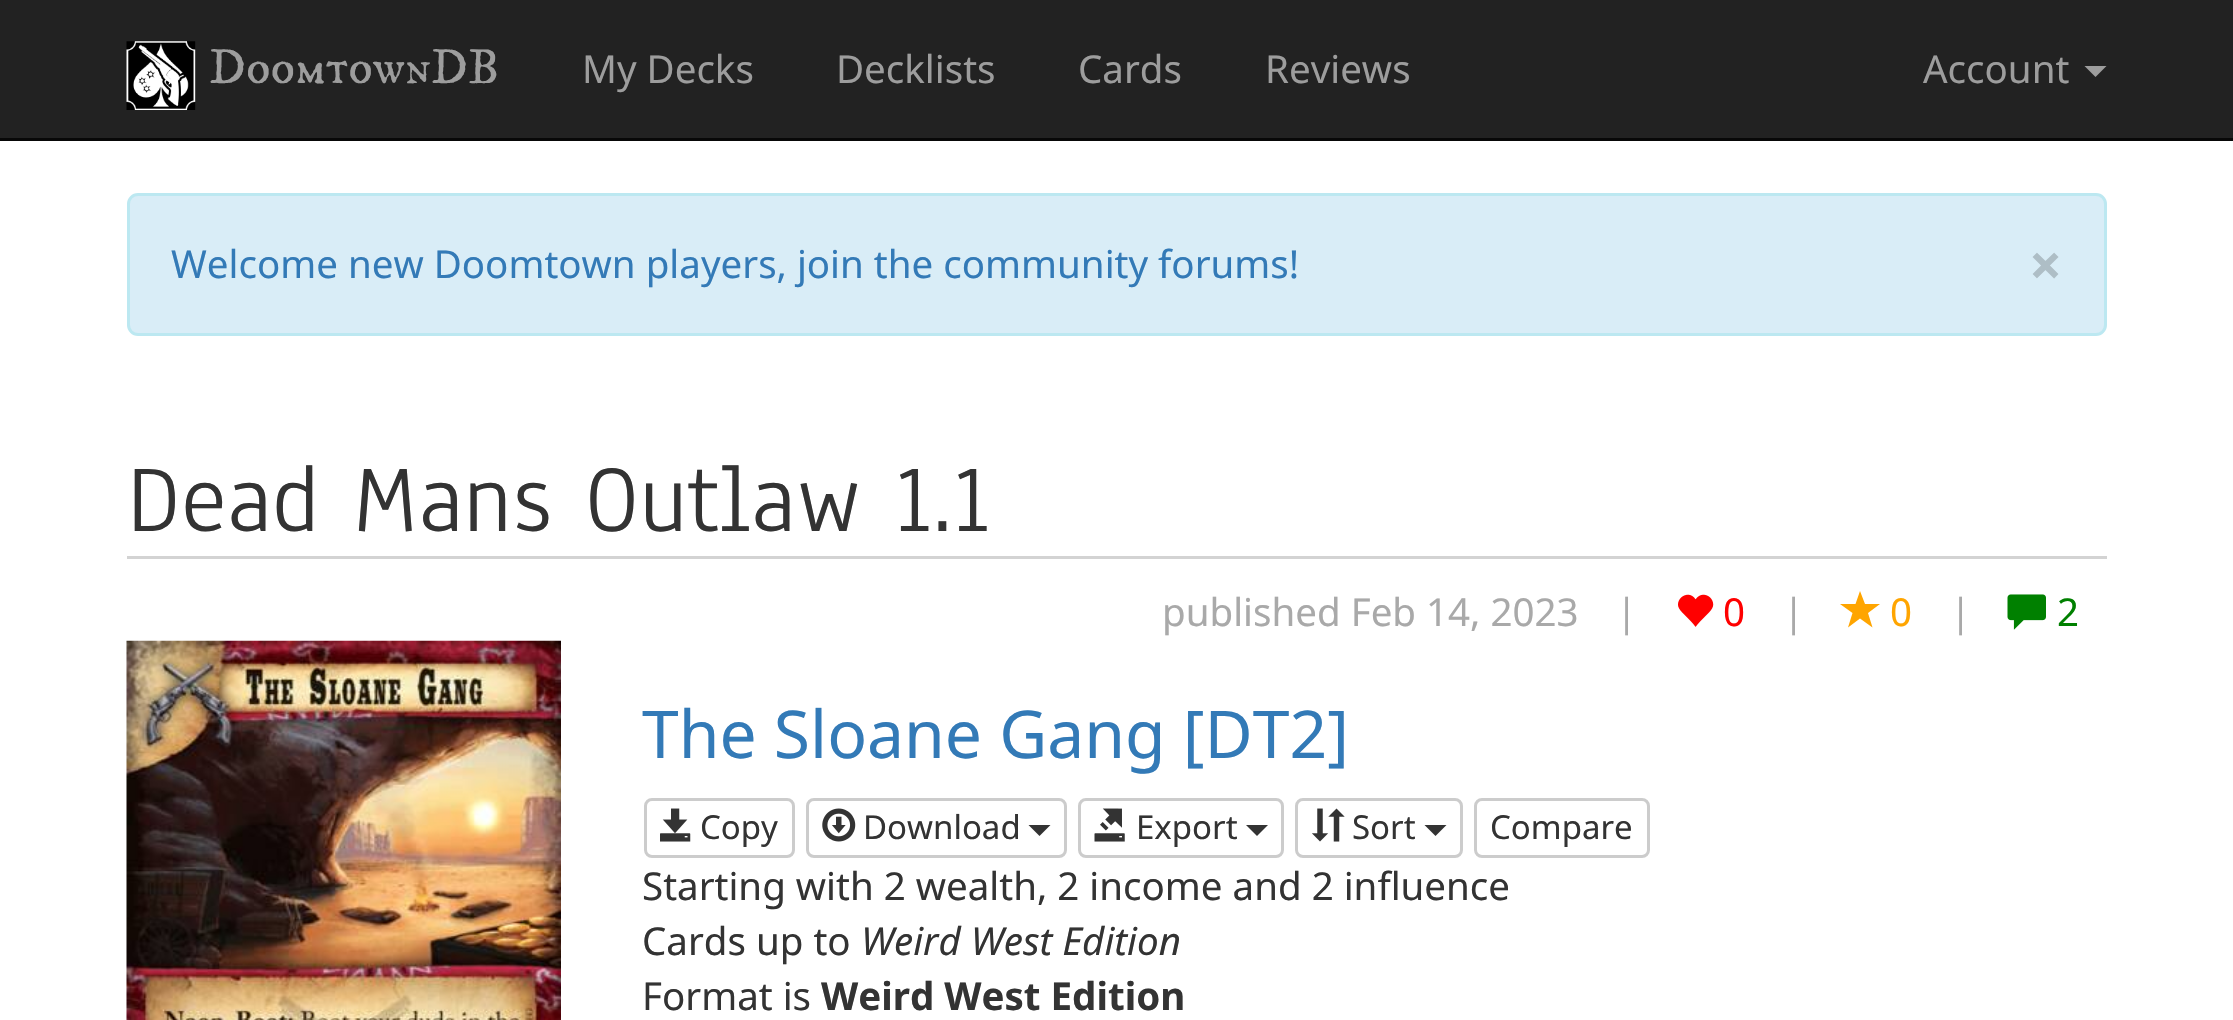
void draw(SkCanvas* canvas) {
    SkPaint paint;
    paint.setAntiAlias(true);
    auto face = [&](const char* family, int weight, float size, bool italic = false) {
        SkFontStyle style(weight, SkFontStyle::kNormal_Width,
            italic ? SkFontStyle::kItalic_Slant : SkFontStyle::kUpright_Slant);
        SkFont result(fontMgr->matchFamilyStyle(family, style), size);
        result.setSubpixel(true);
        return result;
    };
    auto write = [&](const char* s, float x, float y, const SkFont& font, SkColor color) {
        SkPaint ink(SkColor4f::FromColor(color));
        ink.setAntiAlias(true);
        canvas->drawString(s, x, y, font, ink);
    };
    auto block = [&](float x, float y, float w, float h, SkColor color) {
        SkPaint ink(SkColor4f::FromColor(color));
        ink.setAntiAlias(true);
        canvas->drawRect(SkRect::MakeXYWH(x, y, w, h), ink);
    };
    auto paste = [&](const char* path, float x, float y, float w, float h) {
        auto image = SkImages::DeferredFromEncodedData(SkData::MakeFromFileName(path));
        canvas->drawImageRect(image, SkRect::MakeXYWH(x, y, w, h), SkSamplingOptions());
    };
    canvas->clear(SK_ColorWHITE);
    block(0, 0, 2233, 138, SkColorSetRGB(34, 34, 34));
    block(0, 138, 2233, 3, SkColorSetRGB(8, 8, 8));
    paste("pic1.png", 126, 41, 70, 69);
    auto kFont1 = face("IM FELL DW Pica SC", 400, 49.5f);
    write("DoomtownDB", 209, 83, kFont1, SkColorSetRGB(157, 157, 157));
    auto kFont2 = face("Noto Sans", 400, 38.5f);
    write("My Decks", 582, 83, kFont2, SkColorSetRGB(157, 157, 157));
    write("Decklists", 836, 83, kFont2, SkColorSetRGB(157, 157, 157));
    write("Cards", 1078, 83, kFont2, SkColorSetRGB(157, 157, 157));
    write("Reviews", 1265, 83, kFont2, SkColorSetRGB(157, 157, 157));
    write("Account", 1923, 83, kFont2, SkColorSetRGB(157, 157, 157));
    paint.setColor(SkColorSetRGB(157, 157, 157));
    canvas->drawPath(SkPathBuilder().moveTo(2084.5f, 66).lineTo(2106.5f, 66).lineTo(2095.5f, 77).close().detach(), paint);
    paint.setColor(SkColorSetRGB(217, 237, 247));
    canvas->drawRoundRect(SkRect::MakeXYWH(128.5f, 194.5f, 1977, 140), 9.5f, 9.5f, paint);
    paint.setStyle(SkPaint::kStroke_Style);
    paint.setStrokeWidth(3);
    paint.setColor(SkColorSetRGB(188, 232, 241));
    canvas->drawRoundRect(SkRect::MakeXYWH(128.5f, 194.5f, 1977, 140), 9.5f, 9.5f, paint);
    write("Welcome new Doomtown players, join the community forums!", 171, 278, kFont2, SkColorSetRGB(51, 122, 183));
    auto kFont3 = face("Noto Sans", 700, 58);
    write("×", 2029, 286, kFont3, SkColorSetRGB(174, 190, 198));
    block(127, 556, 1980, 3, SkColorSetRGB(211, 211, 211));
    auto kFont4 = face("Anaheim", 400, 99);
    write("Dead Mans Outlaw 1.1", 127, 531, kFont4, SkColorSetRGB(51, 51, 51));
    write("published Feb 14, 2023", 1162, 626, kFont2, SkColorSetRGB(169, 169, 169));
    write("|", 1616, 626, kFont2, SkColorSetRGB(169, 169, 169));
    paste("pic2.png", 1678, 594, 36, 33);
    write("0", 1723, 626, kFont2, SkColorSetRGB(255, 0, 0));
    write("|", 1783, 626, kFont2, SkColorSetRGB(169, 169, 169));
    paint.setStyle(SkPaint::kFill_Style);
    paint.setColor(SkColorSetRGB(255, 165, 0));
    canvas->drawPath(SkPathBuilder().moveTo(1840, 604).lineTo(1855.5f, 604).lineTo(1860, 591).lineTo(1865, 604).lineTo(1880, 604).lineTo(1868, 613).lineTo(1872.5f, 627.5f).lineTo(1860, 618.5f).lineTo(1848, 627.5f).lineTo(1852.5f, 613).close().moveTo(1848, 627.5f).lineTo(1848, 627.5f).close().detach(), paint);
    write("0", 1890, 626, kFont2, SkColorSetRGB(255, 165, 0));
    write("|", 1950, 626, kFont2, SkColorSetRGB(169, 169, 169));
    paste("pic3.png", 2007, 594, 39, 36);
    write("2", 2057, 626, kFont2, SkColorSetRGB(0, 128, 0));
    paste("pic4.png", 126, 640, 435, 380);
    auto kFont5 = face("Noto Sans", 400, 66);
    write("The Sloane Gang [DT2]", 642, 758, kFont5, SkColorSetRGB(51, 122, 183));
    paint.setStyle(SkPaint::kStroke_Style);
    paint.setColor(SkColorSetRGB(204, 204, 204));
    canvas->drawRoundRect(SkRect::MakeXYWH(645.5f, 799.5f, 148, 57), 6.5f, 6.5f, paint);
    paste("pic5.png", 660, 808, 31, 34);
    auto kFont6 = face("Noto Sans", 400, 33);
    write("Copy", 700, 839, kFont6, SkColorSetRGB(51, 51, 51));
    canvas->drawRoundRect(SkRect::MakeXYWH(807.5f, 799.5f, 258, 57), 6.5f, 6.5f, paint);
    paste("pic6.png", 822, 808, 34, 34);
    write("Download", 863, 839, kFont6, SkColorSetRGB(51, 51, 51));
    paint.setStyle(SkPaint::kFill_Style);
    paint.setColor(SkColorSetRGB(51, 51, 51));
    canvas->drawPath(SkPathBuilder().moveTo(1028.5f, 825).lineTo(1050.5f, 825).lineTo(1039.5f, 836).close().detach(), paint);
    paint.setStyle(SkPaint::kStroke_Style);
    paint.setColor(SkColorSetRGB(204, 204, 204));
    canvas->drawRoundRect(SkRect::MakeXYWH(1079.5f, 799.5f, 203, 57), 6.5f, 6.5f, paint);
    paste("pic7.png", 1094, 808, 31, 34);
    write("Export", 1136, 839, kFont6, SkColorSetRGB(51, 51, 51));
    paint.setStyle(SkPaint::kFill_Style);
    paint.setColor(SkColorSetRGB(51, 51, 51));
    canvas->drawPath(SkPathBuilder().moveTo(1246, 825).lineTo(1268, 825).lineTo(1257, 836).close().detach(), paint);
    paint.setStyle(SkPaint::kStroke_Style);
    paint.setColor(SkColorSetRGB(204, 204, 204));
    canvas->drawRoundRect(SkRect::MakeXYWH(1296.5f, 799.5f, 165, 57), 6.5f, 6.5f, paint);
    paste("pic8.png", 1312, 808, 33, 34);
    write("Sort", 1352, 839, kFont6, SkColorSetRGB(51, 51, 51));
    paint.setStyle(SkPaint::kFill_Style);
    paint.setColor(SkColorSetRGB(51, 51, 51));
    canvas->drawPath(SkPathBuilder().moveTo(1424.5f, 825).lineTo(1446.5f, 825).lineTo(1435.5f, 836).close().detach(), paint);
    paint.setStyle(SkPaint::kStroke_Style);
    paint.setColor(SkColorSetRGB(204, 204, 204));
    canvas->drawRoundRect(SkRect::MakeXYWH(1475.5f, 799.5f, 173, 57), 6.5f, 6.5f, paint);
    write("Compare", 1490, 839, kFont6, SkColorSetRGB(51, 51, 51));
    write("Starting with 2 wealth, 2 income and 2 influence", 642, 900, kFont2, SkColorSetRGB(51, 51, 51));
    write("Cards up to", 642, 955, kFont2, SkColorSetRGB(51, 51, 51));
    auto kFont7 = face("Noto Sans", 400, 38.5f, true);
    write("Weird West Edition", 861, 955, kFont7, SkColorSetRGB(51, 51, 51));
    write("Format is", 642, 1010, kFont2, SkColorSetRGB(51, 51, 51));
    auto kFont8 = face("Noto Sans", 700, 38.5f);
    write("Weird West Edition", 821, 1010, kFont8, SkColorSetRGB(51, 51, 51));
}
